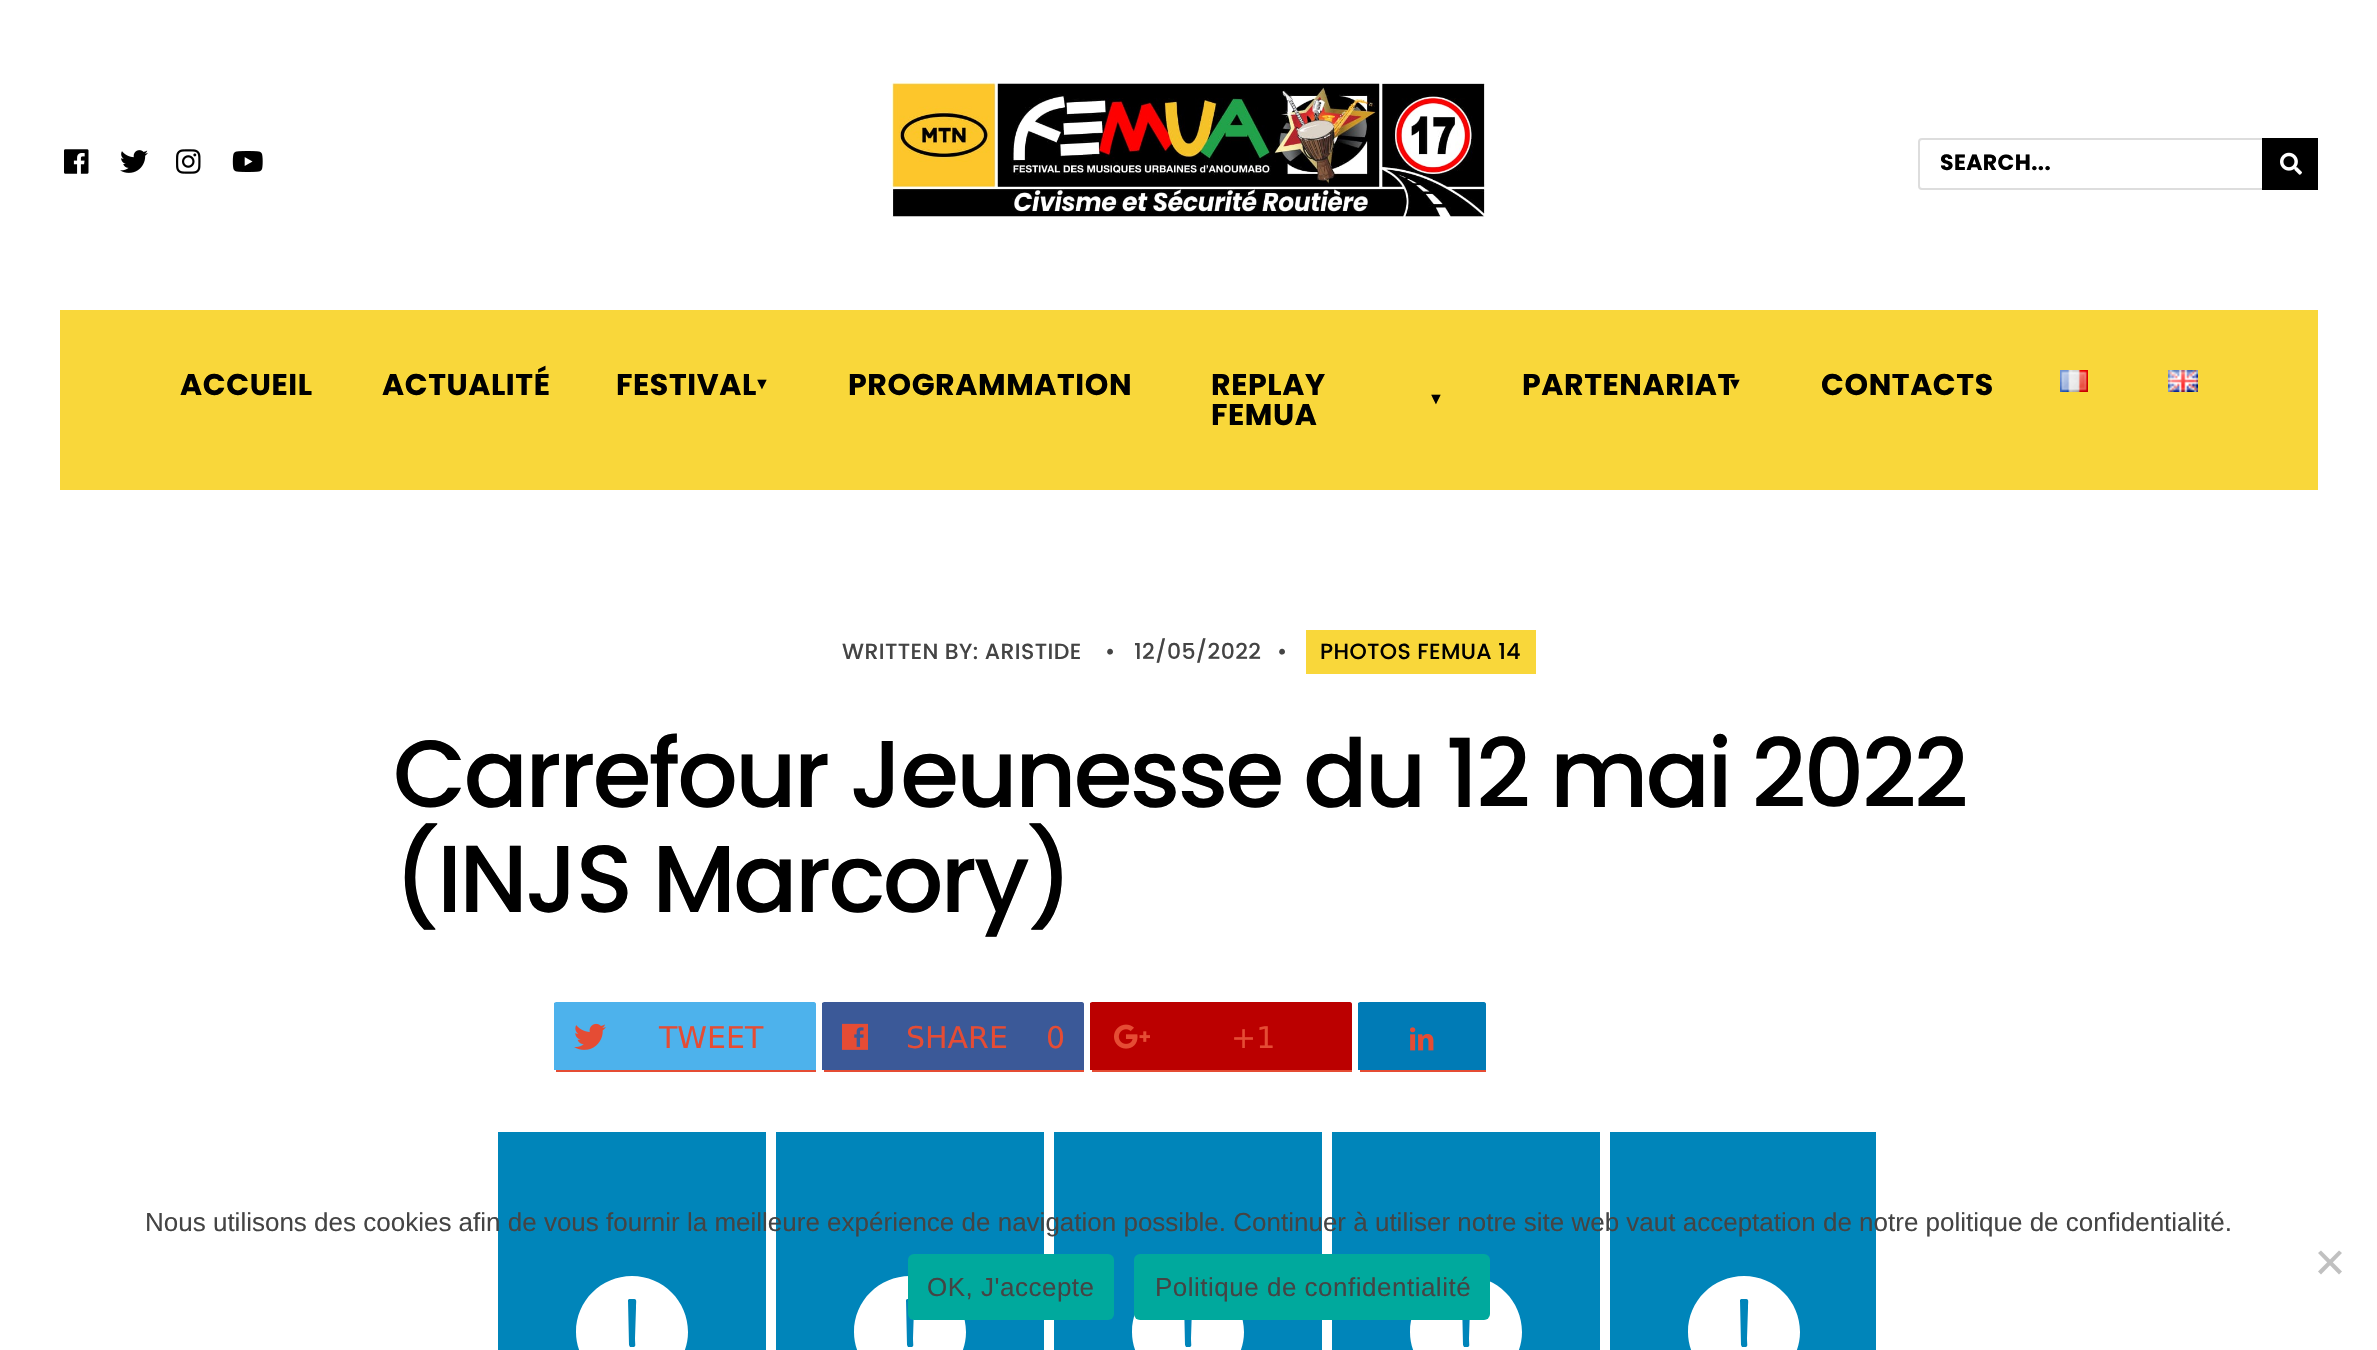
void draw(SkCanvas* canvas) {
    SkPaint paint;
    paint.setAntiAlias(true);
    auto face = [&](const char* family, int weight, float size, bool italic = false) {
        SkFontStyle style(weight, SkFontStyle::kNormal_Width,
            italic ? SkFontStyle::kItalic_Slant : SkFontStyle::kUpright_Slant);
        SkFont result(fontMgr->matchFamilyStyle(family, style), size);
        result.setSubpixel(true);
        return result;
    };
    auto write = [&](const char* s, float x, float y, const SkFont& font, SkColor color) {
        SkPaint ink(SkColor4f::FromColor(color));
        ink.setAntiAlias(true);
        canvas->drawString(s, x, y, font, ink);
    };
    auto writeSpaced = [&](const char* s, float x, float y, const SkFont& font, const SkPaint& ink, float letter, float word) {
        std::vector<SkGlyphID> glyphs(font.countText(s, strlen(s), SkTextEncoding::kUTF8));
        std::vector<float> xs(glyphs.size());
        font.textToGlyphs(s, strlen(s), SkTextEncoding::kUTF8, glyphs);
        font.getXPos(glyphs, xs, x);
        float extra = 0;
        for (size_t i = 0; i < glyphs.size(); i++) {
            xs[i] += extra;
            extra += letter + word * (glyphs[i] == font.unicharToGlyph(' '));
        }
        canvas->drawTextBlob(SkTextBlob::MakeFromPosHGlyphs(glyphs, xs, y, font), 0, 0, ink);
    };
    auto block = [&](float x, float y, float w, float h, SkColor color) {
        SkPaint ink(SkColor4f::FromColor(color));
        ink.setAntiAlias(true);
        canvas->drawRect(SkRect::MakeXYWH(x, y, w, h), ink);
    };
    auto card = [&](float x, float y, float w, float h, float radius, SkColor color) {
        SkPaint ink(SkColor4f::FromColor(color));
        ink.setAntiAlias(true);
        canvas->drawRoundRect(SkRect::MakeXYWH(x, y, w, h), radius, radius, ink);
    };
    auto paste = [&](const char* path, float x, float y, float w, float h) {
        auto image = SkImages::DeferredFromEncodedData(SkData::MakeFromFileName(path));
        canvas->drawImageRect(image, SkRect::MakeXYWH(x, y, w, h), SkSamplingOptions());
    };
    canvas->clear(SK_ColorWHITE);
    paste("pic1.png", 64, 149, 25, 25);
    paste("pic2.png", 120, 150, 28, 23);
    paste("pic3.png", 176, 149, 25, 25);
    paste("pic4.png", 232, 151, 31, 21);
    paint.setStyle(SkPaint::kStroke_Style);
    paint.setStrokeWidth(2);
    paint.setColor(SkColorSetRGB(221, 221, 221));
    canvas->drawRoundRect(SkRect::MakeXYWH(1919, 139, 398, 50), 3, 3, paint);
    auto kFont1 = face("Poppins", 700, 22);
    paint.setStyle(SkPaint::kFill_Style);
    paint.setColor(SK_ColorBLACK);
    writeSpaced("SEARCH...", 1940, 170, kFont1, paint, 0.4f, 0);
    block(2262, 138, 56, 52, SK_ColorBLACK);
    paste("pic5.png", 2280, 152, 22, 23);
    paste("pic6.png", 890, 80, 596, 140);
    block(60, 310, 2258, 180, SkColorSetRGB(249, 215, 58));
    auto kFont2 = face("Poppins", 700, 30);
    writeSpaced("ACCUEIL", 180, 395, kFont2, paint, 0.6f, 0);
    writeSpaced("ACTUALITÉ", 382, 395, kFont2, paint, 0.6f, 0);
    writeSpaced("FESTIVAL", 616, 395, kFont2, paint, 0.6f, 0);
    auto kFont3 = face("Liberation Sans", 400, 16);
    writeSpaced("▼", 754, 389, kFont3, paint, 0.6f, 0);
    writeSpaced("PROGRAMMATION", 848, 395, kFont2, paint, 0.6f, 0);
    writeSpaced("REPLAY", 1211, 395, kFont2, paint, 0.6f, 0);
    writeSpaced("▼", 1428, 404, kFont3, paint, 0.6f, 0);
    writeSpaced("FEMUA", 1211, 425, kFont2, paint, 0.6f, 0);
    writeSpaced("PARTENARIAT", 1522, 395, kFont2, paint, 0.6f, 0);
    writeSpaced("▼", 1727, 389, kFont3, paint, 0.6f, 0);
    writeSpaced("CONTACTS", 1821, 395, kFont2, paint, 0.6f, 0);
    paste("pic7.png", 2060, 370, 28, 22);
    paste("pic8.png", 2168, 370, 30, 22);
    auto kFont4 = face("Poppins", 500, 22);
    paint.setColor(SkColorSetRGB(68, 68, 68));
    writeSpaced("WRITTEN BY: ARISTIDE", 842, 659, kFont4, paint, 0.4f, 0);
    writeSpaced("•", 1105, 659, kFont4, paint, 0.4f, 0);
    writeSpaced("12/05/2022", 1134, 659, kFont4, paint, 0.4f, 0);
    writeSpaced("•", 1277, 659, kFont4, paint, 0.4f, 0);
    block(1306, 630, 230, 44, SkColorSetRGB(249, 215, 58));
    paint.setColor(SK_ColorBLACK);
    writeSpaced("PHOTOS FEMUA 14", 1320, 659, kFont4, paint, 0.4f, 0);
    auto kFont5 = face("Poppins", 500, 95.1f);
    writeSpaced("Carrefour Jeunesse du 12 mai 2022", 393, 807, kFont5, paint, -2.85f, 0);
    writeSpaced("(INJS Marcory)", 393, 912, kFont5, paint, -2.85f, 0);
    paint.setColor(SkColorSetRGB(77, 178, 236));
    canvas->drawPath(SkPathBuilder().moveTo(556, 1002).lineTo(814, 1002).cubicTo(815, 1002, 816, 1003, 816, 1004).lineTo(816, 1070).lineTo(554, 1070).lineTo(554, 1003).close().detach(), paint);
    block(556, 1070, 260, 2, SkColorSetRGB(229, 76, 52));
    paste("pic9.png", 574, 1023, 32, 27);
    auto kFont6 = face("DejaVu Sans", 400, 30);
    write("TWEET", 659, 1048, kFont6, SkColorSetRGB(229, 76, 52));
    paint.setColor(SkColorSetRGB(59, 89, 152));
    canvas->drawPath(SkPathBuilder().moveTo(824, 1002).lineTo(1082, 1002).cubicTo(1083, 1002, 1084, 1003, 1084, 1004).lineTo(1084, 1070).lineTo(822, 1070).lineTo(822, 1003).close().detach(), paint);
    block(824, 1070, 260, 2, SkColorSetRGB(229, 76, 52));
    paste("pic10.png", 842, 1023, 26, 27);
    write("SHARE", 906, 1048, kFont6, SkColorSetRGB(229, 76, 52));
    write("0", 1046, 1048, kFont6, SkColorSetRGB(229, 76, 52));
    paint.setColor(SkColorSetRGB(187, 0, 0));
    canvas->drawPath(SkPathBuilder().moveTo(1092, 1002).lineTo(1350, 1002).cubicTo(1351, 1002, 1352, 1003, 1352, 1004).lineTo(1352, 1070).lineTo(1090, 1070).lineTo(1090, 1003).close().detach(), paint);
    block(1092, 1070, 260, 2, SkColorSetRGB(229, 76, 52));
    paste("pic11.png", 1114, 1024, 36, 25);
    write("+1", 1231, 1048, kFont6, SkColorSetRGB(229, 76, 52));
    paint.setColor(SkColorSetRGB(0, 123, 182));
    canvas->drawPath(SkPathBuilder().moveTo(1360, 1002).lineTo(1484, 1002).cubicTo(1485, 1002, 1486, 1003, 1486, 1004).lineTo(1486, 1070).lineTo(1358, 1070).lineTo(1358, 1003).close().detach(), paint);
    block(1360, 1070, 126, 2, SkColorSetRGB(229, 76, 52));
    paste("pic12.png", 1410, 1027, 24, 24);
    block(498, 1132, 268, 218, SkColorSetRGB(0, 133, 186));
    paint.setColor(SK_ColorWHITE);
    canvas->drawPath(SkPathBuilder().moveTo(632, 1276).cubicTo(601, 1276, 576, 1301, 576, 1332).cubicTo(576, 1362, 601, 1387, 632, 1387).cubicTo(663, 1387, 688, 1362, 688, 1332).cubicTo(688, 1301, 663, 1276, 632, 1276).close().moveTo(629, 1299).cubicTo(638, 1299, 636, 1298, 636, 1308).lineTo(635, 1338).cubicTo(635, 1347, 637, 1347, 630, 1347).lineTo(629, 1345).lineTo(628, 1300).close().moveTo(636, 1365).cubicTo(631, 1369, 624, 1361, 629, 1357).cubicTo(634, 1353, 640, 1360, 636, 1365).close().detach(), paint);
    block(776, 1132, 268, 218, SkColorSetRGB(0, 133, 186));
    canvas->drawPath(SkPathBuilder().moveTo(910, 1276).cubicTo(879, 1276, 854, 1301, 854, 1332).cubicTo(854, 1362, 879, 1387, 910, 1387).cubicTo(941, 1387, 966, 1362, 966, 1332).cubicTo(966, 1301, 941, 1276, 910, 1276).close().moveTo(907, 1299).cubicTo(916, 1299, 914, 1298, 914, 1308).lineTo(913, 1338).cubicTo(913, 1347, 915, 1347, 908, 1347).lineTo(907, 1345).lineTo(906, 1300).close().moveTo(914, 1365).cubicTo(909, 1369, 902, 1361, 907, 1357).cubicTo(912, 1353, 918, 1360, 914, 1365).close().detach(), paint);
    block(1054, 1132, 268, 218, SkColorSetRGB(0, 133, 186));
    canvas->drawPath(SkPathBuilder().moveTo(1188, 1276).cubicTo(1157, 1276, 1132, 1301, 1132, 1332).cubicTo(1132, 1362, 1157, 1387, 1188, 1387).cubicTo(1219, 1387, 1244, 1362, 1244, 1332).cubicTo(1244, 1301, 1219, 1276, 1188, 1276).close().moveTo(1185, 1299).cubicTo(1194, 1299, 1192, 1298, 1192, 1308).lineTo(1191, 1338).cubicTo(1191, 1347, 1193, 1347, 1186, 1347).lineTo(1185, 1345).lineTo(1184, 1300).close().moveTo(1192, 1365).cubicTo(1187, 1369, 1180, 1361, 1185, 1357).cubicTo(1190, 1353, 1196, 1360, 1192, 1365).close().detach(), paint);
    block(1332, 1132, 268, 218, SkColorSetRGB(0, 133, 186));
    canvas->drawPath(SkPathBuilder().moveTo(1466, 1276).cubicTo(1435, 1276, 1410, 1301, 1410, 1332).cubicTo(1410, 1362, 1435, 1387, 1466, 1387).cubicTo(1497, 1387, 1522, 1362, 1522, 1332).cubicTo(1522, 1301, 1497, 1276, 1466, 1276).close().moveTo(1463, 1299).cubicTo(1472, 1299, 1470, 1298, 1470, 1308).lineTo(1469, 1338).cubicTo(1469, 1347, 1471, 1347, 1464, 1347).lineTo(1463, 1345).lineTo(1462, 1300).close().moveTo(1470, 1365).cubicTo(1465, 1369, 1458, 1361, 1463, 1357).cubicTo(1468, 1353, 1474, 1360, 1470, 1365).close().detach(), paint);
    block(1610, 1132, 266, 218, SkColorSetRGB(0, 133, 186));
    canvas->drawPath(SkPathBuilder().moveTo(1744, 1276).cubicTo(1713, 1276, 1688, 1301, 1688, 1332).cubicTo(1688, 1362, 1713, 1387, 1744, 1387).cubicTo(1775, 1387, 1800, 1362, 1800, 1332).cubicTo(1800, 1301, 1775, 1276, 1744, 1276).close().moveTo(1741, 1299).cubicTo(1750, 1299, 1748, 1298, 1748, 1308).lineTo(1747, 1338).cubicTo(1747, 1347, 1749, 1347, 1742, 1347).lineTo(1741, 1345).lineTo(1740, 1300).close().moveTo(1748, 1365).cubicTo(1743, 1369, 1736, 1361, 1741, 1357).cubicTo(1746, 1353, 1752, 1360, 1748, 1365).close().detach(), paint);
    auto kFont7 = face("Liberation Sans", 400, 26);
    write("Nous utilisons des cookies afin de vous fournir la meilleure expérience de navigation possible. Continuer à utiliser notre site web vaut acceptation de notre politique de confidentialité.", 145, 1231, kFont7, SkColorSetRGB(68, 68, 68));
    paint.setColor(SkColorSetRGB(192, 192, 192));
    canvas->drawPath(SkPathBuilder().moveTo(2339, 1250.5f).lineTo(2342, 1253).lineTo(2321, 1274.5f).lineTo(2318, 1271.5f).close().detach(), paint);
    canvas->drawPath(SkPathBuilder().moveTo(2318, 1253).lineTo(2321, 1250.5f).lineTo(2342, 1271.5f).lineTo(2339, 1274.5f).close().detach(), paint);
    card(908, 1254, 206, 66, 6, SkColorSetRGB(0, 169, 157));
    paint.setColor(SkColorSetRGB(68, 68, 68));
    writeSpaced("OK, J'accepte", 927, 1296, kFont7, paint, 0.5f, 0);
    card(1134, 1254, 356, 66, 6, SkColorSetRGB(0, 169, 157));
    writeSpaced("Politique de confidentialité", 1155, 1296, kFont7, paint, 0.5f, 0);
}
